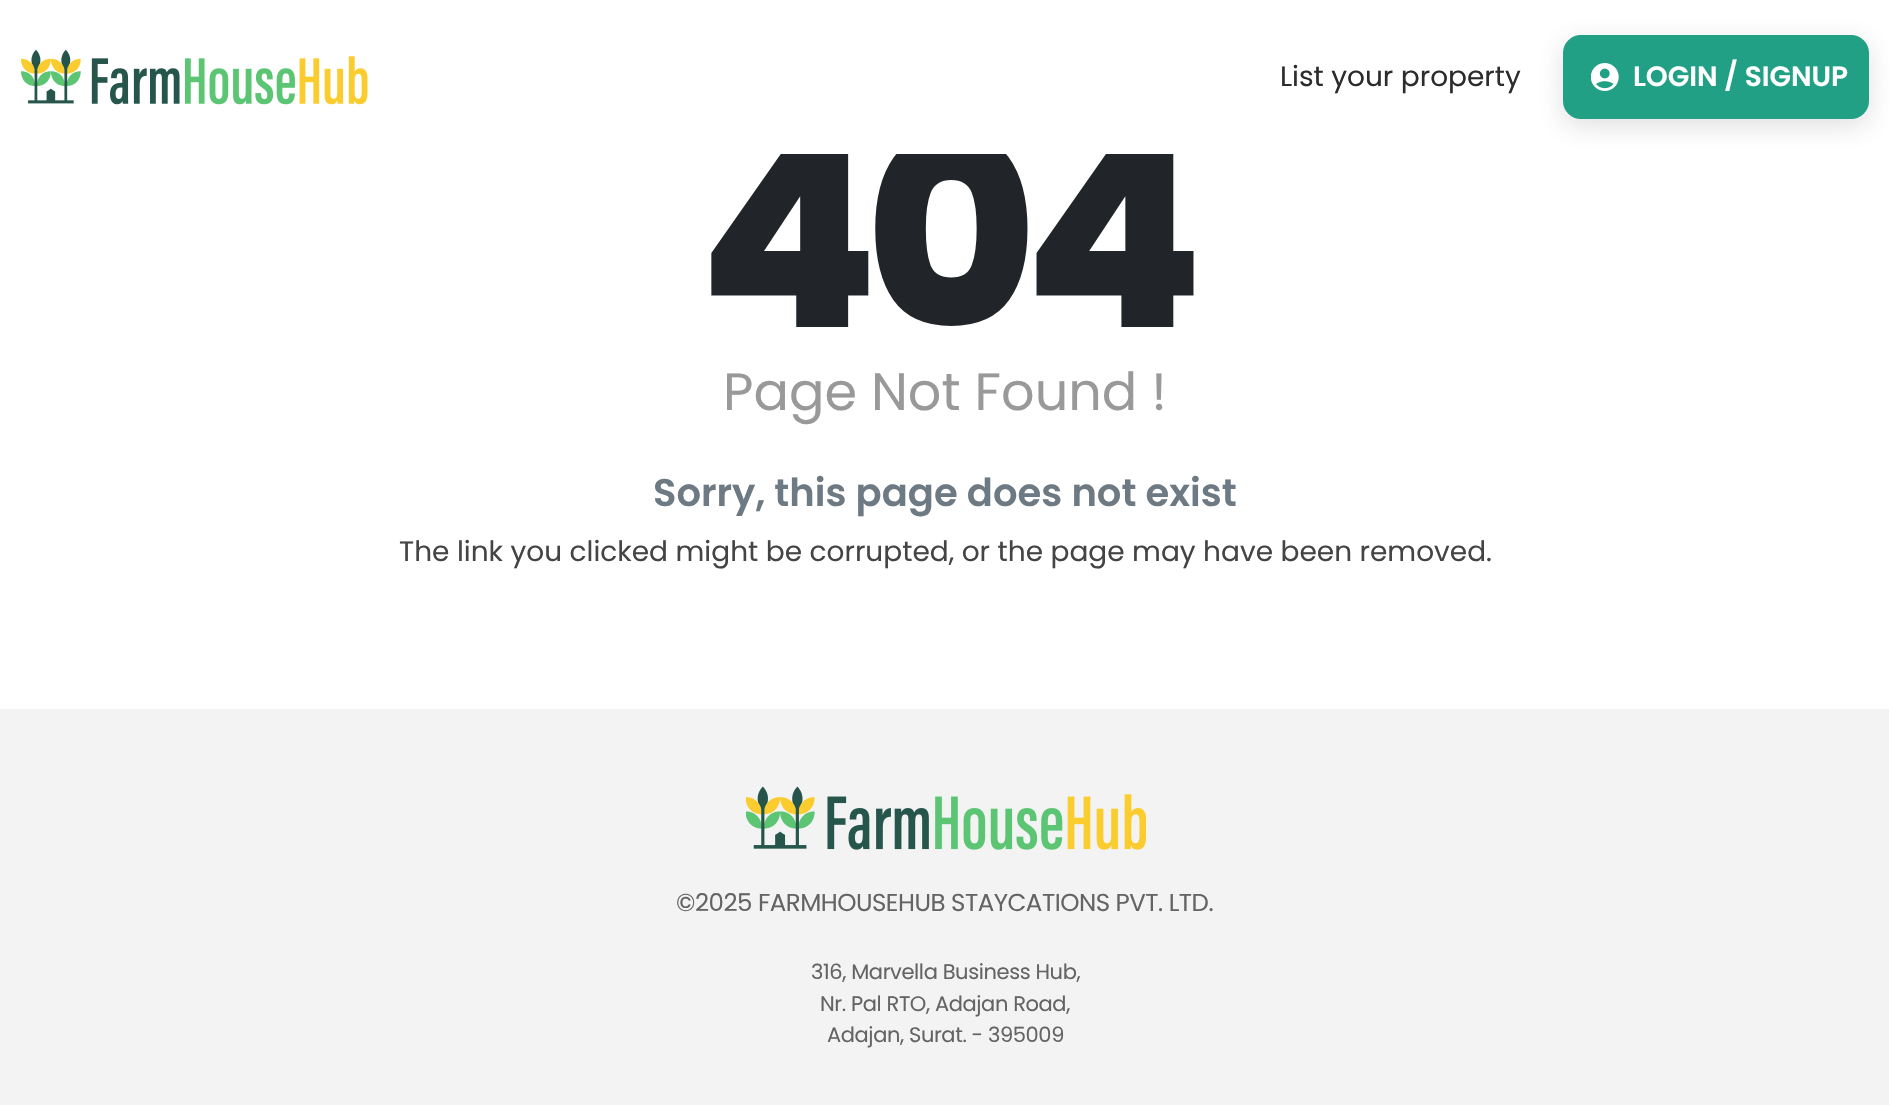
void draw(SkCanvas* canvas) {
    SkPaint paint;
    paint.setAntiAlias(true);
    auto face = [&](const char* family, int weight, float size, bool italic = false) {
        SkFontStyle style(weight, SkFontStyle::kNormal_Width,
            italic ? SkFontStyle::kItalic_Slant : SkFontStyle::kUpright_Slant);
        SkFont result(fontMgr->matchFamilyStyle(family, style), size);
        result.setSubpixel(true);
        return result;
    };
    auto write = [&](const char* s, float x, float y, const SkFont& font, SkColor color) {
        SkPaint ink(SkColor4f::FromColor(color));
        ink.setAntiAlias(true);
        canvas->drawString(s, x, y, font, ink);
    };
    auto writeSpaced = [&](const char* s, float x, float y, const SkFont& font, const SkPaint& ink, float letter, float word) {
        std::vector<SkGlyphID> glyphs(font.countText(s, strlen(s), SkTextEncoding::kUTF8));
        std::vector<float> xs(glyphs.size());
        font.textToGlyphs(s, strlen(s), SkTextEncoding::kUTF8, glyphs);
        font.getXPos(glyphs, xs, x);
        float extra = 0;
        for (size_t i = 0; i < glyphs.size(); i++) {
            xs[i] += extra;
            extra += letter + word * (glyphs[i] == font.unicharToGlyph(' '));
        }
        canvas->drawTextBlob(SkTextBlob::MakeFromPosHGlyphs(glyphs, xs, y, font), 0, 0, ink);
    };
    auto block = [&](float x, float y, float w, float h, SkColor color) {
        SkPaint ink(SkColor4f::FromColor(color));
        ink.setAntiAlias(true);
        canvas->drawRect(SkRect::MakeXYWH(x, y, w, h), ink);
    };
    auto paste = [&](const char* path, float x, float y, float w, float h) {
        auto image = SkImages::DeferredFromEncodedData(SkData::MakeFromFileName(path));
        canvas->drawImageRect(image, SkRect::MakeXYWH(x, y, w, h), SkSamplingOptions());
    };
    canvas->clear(SK_ColorWHITE);
    auto kFont1 = face("Poppins", 800, 262);
    paint.setColor(SkColorSetRGB(33, 37, 41));
    writeSpaced("404", 698, 327, kFont1, paint, -14, 0);
    block(781, 131, 394, 23, SK_ColorWHITE);
    paste("pic1.png", 21, 49, 347, 56);
    auto kFont2 = face("Poppins", 400, 28);
    write("List your property", 1280, 86, kFont2, SkColorSetRGB(44, 44, 44));
    paint.setColor(SkColorSetARGB(46, 79, 79, 79));
    paint.setMaskFilter(SkMaskFilter::MakeBlur(kNormal_SkBlurStyle, 13));
    canvas->drawRoundRect(SkRect::MakeXYWH(1563, 42, 306, 84), 18, 18, paint);
    paint.setMaskFilter(nullptr);
    paint.setColor(SkColorSetRGB(33, 160, 134));
    canvas->drawRoundRect(SkRect::MakeXYWH(1565, 37, 302, 80), 16, 16, paint);
    paint.setStyle(SkPaint::kStroke_Style);
    paint.setStrokeWidth(4);
    canvas->drawRoundRect(SkRect::MakeXYWH(1565, 37, 302, 80), 16, 16, paint);
    paste("pic2.png", 1591, 63, 28, 28);
    auto kFont3 = face("Poppins", 600, 28);
    write("LOGIN / SIGNUP", 1633, 86, kFont3, SK_ColorWHITE);
    auto kFont4 = face("Poppins", 400, 52.5f);
    write("Page Not Found !", 723, 410, kFont4, SkColorSetRGB(153, 153, 153));
    auto kFont5 = face("Poppins", 600, 38.5f);
    write("Sorry, this page does not exist", 653, 506, kFont5, SkColorSetRGB(109, 122, 131));
    write("The link you clicked might be corrupted, or the page may have been removed.", 399, 561, kFont2, SkColorSetRGB(68, 68, 68));
    block(0, 709, 1889, 396, SkColorSetRGB(243, 243, 243));
    paste("pic3.png", 746, 786, 400, 64);
    auto kFont6 = face("Poppins", 400, 24.5f);
    paint.setStyle(SkPaint::kFill_Style);
    paint.setColor(SkColorSetRGB(100, 100, 100));
    writeSpaced("©2025 FARMHOUSEHUB STAYCATIONS PVT. LTD.", 676, 911, kFont6, paint, -0.5f, 0);
    auto kFont7 = face("Poppins", 400, 21);
    writeSpaced("316, Marvella Business Hub,", 811, 979, kFont7, paint, -0.4f, 0);
    writeSpaced("Nr. Pal RTO, Adajan Road,", 820, 1011, kFont7, paint, -0.4f, 0);
    writeSpaced("Adajan, Surat. - 395009", 827, 1042, kFont7, paint, -0.4f, 0);
}
